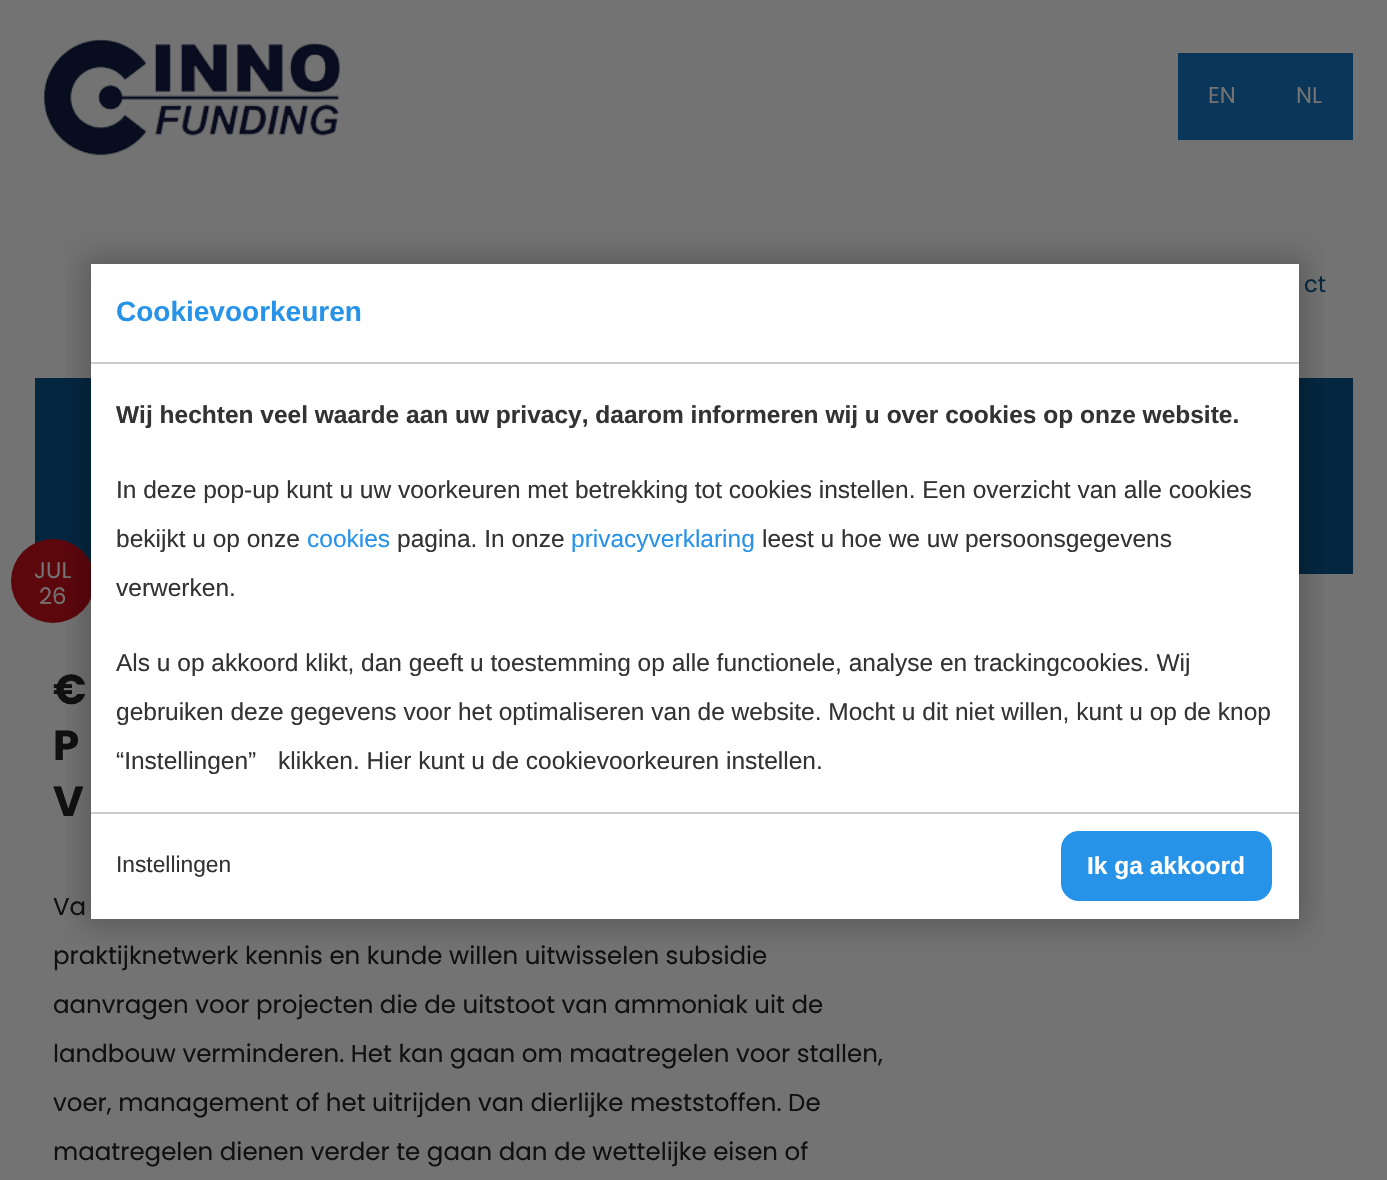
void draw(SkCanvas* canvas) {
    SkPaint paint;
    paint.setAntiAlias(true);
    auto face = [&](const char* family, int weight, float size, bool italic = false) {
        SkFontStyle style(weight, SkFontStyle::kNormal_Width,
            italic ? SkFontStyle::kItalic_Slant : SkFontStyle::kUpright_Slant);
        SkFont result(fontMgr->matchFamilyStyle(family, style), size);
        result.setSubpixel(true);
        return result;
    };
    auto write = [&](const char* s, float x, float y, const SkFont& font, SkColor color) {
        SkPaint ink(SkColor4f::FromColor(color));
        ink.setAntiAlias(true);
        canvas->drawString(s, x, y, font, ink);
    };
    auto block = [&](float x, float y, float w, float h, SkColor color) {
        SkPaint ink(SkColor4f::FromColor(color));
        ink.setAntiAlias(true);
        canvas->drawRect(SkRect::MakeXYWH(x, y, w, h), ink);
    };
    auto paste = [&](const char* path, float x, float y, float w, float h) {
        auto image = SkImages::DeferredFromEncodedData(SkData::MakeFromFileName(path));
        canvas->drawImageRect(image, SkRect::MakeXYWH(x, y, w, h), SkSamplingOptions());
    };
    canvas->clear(SkColorSetRGB(115, 115, 115));
    paste("pic1.png", 43, 39, 297, 117);
    block(1178, 53, 175, 87, SkColorSetRGB(9, 54, 89));
    auto kFont1 = face("Poppins", 400, 22.75f);
    write("EN", 1208, 103, kFont1, SkColorSetRGB(115, 115, 115));
    write("NL", 1296, 103, kFont1, SkColorSetRGB(115, 115, 115));
    write("ct", 1304, 292, kFont1, SkColorSetRGB(3, 39, 64));
    block(35, 378, 1318, 196, SkColorSetRGB(3, 39, 64));
    paint.setColor(SkColorSetRGB(92, 7, 12));
    canvas->drawCircle(53, 581, 42, paint);
    write("JUL", 34, 578, kFont1, SkColorSetRGB(115, 115, 115));
    write("26", 39, 604, kFont1, SkColorSetRGB(115, 115, 115));
    auto kFont2 = face("Poppins", 700, 42);
    write("€", 53, 704, kFont2, SkColorSetRGB(16, 16, 16));
    write("P", 53, 760, kFont2, SkColorSetRGB(16, 16, 16));
    write("V", 53, 816, kFont2, SkColorSetRGB(16, 16, 16));
    auto kFont3 = face("Poppins", 400, 24.5f);
    write("Va", 53, 915, kFont3, SkColorSetRGB(16, 16, 16));
    write("praktijknetwerk kennis en kunde willen uitwisselen subsidie", 53, 964, kFont3, SkColorSetRGB(16, 16, 16));
    write("aanvragen voor projecten die de uitstoot van ammoniak uit de", 53, 1013, kFont3, SkColorSetRGB(16, 16, 16));
    write("landbouw verminderen. Het kan gaan om maatregelen voor stallen,", 53, 1062, kFont3, SkColorSetRGB(16, 16, 16));
    write("voer, management of het uitrijden van dierlijke meststoffen. De", 53, 1111, kFont3, SkColorSetRGB(16, 16, 16));
    write("maatregelen dienen verder te gaan dan de wettelijke eisen of", 53, 1160, kFont3, SkColorSetRGB(16, 16, 16));
    canvas->save();
    canvas->clipRect(SkRect::MakeXYWH(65, 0, 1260, 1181));
    paint.setColor(SkColorSetARGB(51, 0, 0, 0));
    paint.setMaskFilter(SkMaskFilter::MakeBlur(kNormal_SkBlurStyle, 13));
    canvas->drawRect(SkRect::MakeXYWH(82, 256, 1225, 672), paint);
    paint.setMaskFilter(nullptr);
    canvas->restore();
    block(91, 264, 1208, 655, SK_ColorWHITE);
    block(91, 362, 1208, 2, SkColorSetRGB(204, 204, 204));
    auto kFont4 = face("Liberation Sans", 700, 28);
    write("Cookievoorkeuren", 116, 321, kFont4, SkColorSetRGB(38, 147, 232));
    auto kFont5 = face("Liberation Sans", 700, 24.5f);
    write("Wij hechten veel waarde aan uw privacy, daarom informeren wij u over cookies op onze website.", 116, 423, kFont5, SkColorSetRGB(51, 51, 51));
    auto kFont6 = face("Liberation Sans", 400, 24.5f);
    write("In deze pop-up kunt u uw voorkeuren met betrekking tot cookies instellen. Een overzicht van alle cookies", 116, 498, kFont6, SkColorSetRGB(51, 51, 51));
    write("bekijkt u op onze", 116, 547, kFont6, SkColorSetRGB(51, 51, 51));
    write("cookies", 307, 547, kFont6, SkColorSetRGB(38, 147, 232));
    write("pagina. In onze", 397, 547, kFont6, SkColorSetRGB(51, 51, 51));
    write("privacyverklaring", 571, 547, kFont6, SkColorSetRGB(38, 147, 232));
    write("leest u hoe we uw persoonsgegevens", 762, 547, kFont6, SkColorSetRGB(51, 51, 51));
    write("verwerken.", 116, 596, kFont6, SkColorSetRGB(51, 51, 51));
    write("Als u op akkoord klikt, dan geeft u toestemming op alle functionele, analyse en trackingcookies. Wij", 116, 671, kFont6, SkColorSetRGB(51, 51, 51));
    write("gebruiken deze gegevens voor het optimaliseren van de website. Mocht u dit niet willen, kunt u op de knop", 116, 720, kFont6, SkColorSetRGB(51, 51, 51));
    write("“Instellingen”", 116, 769, kFont6, SkColorSetRGB(51, 51, 51));
    write("klikken. Hier kunt u de cookievoorkeuren instellen.", 278, 769, kFont6, SkColorSetRGB(51, 51, 51));
    block(91, 812, 1208, 2, SkColorSetRGB(204, 204, 204));
    auto kFont7 = face("Liberation Sans", 400, 22.75f);
    write("Instellingen", 116, 872, kFont7, SkColorSetRGB(51, 51, 51));
    paint.setColor(SkColorSetRGB(38, 147, 232));
    canvas->drawRoundRect(SkRect::MakeXYWH(1062, 832, 209, 68), 17, 17, paint);
    paint.setStyle(SkPaint::kStroke_Style);
    paint.setStrokeWidth(2);
    canvas->drawRoundRect(SkRect::MakeXYWH(1062, 832, 209, 68), 17, 17, paint);
    write("Ik ga akkoord", 1087, 874, kFont5, SK_ColorWHITE);
}
